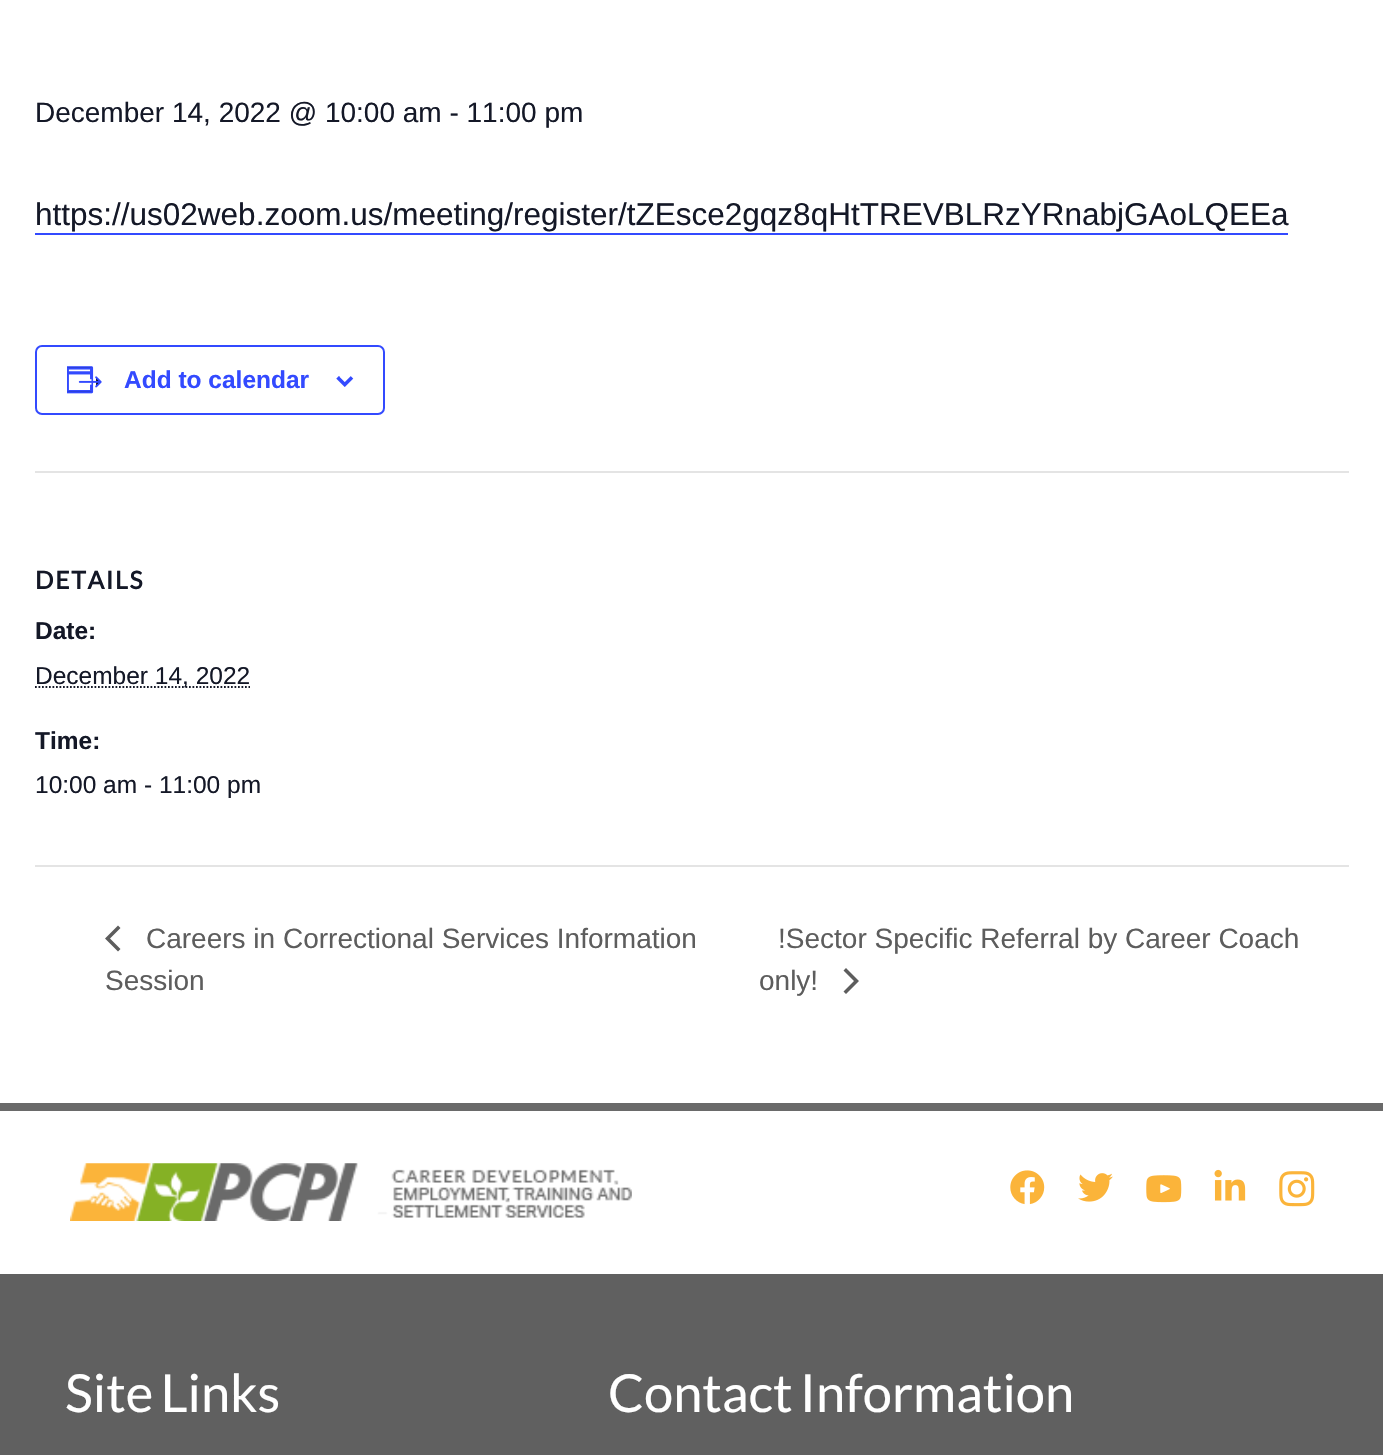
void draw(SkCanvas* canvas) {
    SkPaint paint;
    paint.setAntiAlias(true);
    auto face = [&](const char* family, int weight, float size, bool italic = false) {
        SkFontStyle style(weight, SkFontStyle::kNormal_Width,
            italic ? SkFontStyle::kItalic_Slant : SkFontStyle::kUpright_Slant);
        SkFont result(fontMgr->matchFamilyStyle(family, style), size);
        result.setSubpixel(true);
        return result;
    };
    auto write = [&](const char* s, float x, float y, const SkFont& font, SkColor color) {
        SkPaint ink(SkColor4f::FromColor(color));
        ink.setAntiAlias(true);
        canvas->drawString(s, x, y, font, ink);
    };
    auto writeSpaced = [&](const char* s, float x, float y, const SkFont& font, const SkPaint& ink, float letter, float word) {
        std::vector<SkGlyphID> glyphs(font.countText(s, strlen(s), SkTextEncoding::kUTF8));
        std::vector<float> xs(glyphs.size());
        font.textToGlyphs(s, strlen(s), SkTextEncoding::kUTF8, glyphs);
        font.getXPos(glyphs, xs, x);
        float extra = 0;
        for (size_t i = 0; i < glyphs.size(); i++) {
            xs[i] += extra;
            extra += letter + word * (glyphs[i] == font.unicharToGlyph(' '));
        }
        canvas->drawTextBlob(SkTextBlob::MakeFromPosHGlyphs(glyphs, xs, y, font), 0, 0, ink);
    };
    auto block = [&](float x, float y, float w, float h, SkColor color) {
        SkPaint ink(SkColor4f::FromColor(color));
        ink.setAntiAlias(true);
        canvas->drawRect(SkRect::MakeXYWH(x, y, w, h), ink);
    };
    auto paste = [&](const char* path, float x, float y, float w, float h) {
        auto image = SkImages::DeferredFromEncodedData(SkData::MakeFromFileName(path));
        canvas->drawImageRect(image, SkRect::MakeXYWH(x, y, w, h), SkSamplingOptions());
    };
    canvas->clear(SK_ColorWHITE);
    auto kFont1 = face("Liberation Sans", 400, 28);
    write("December 14, 2022 @ 10:00 am - 11:00 pm", 35, 122, kFont1, SkColorSetRGB(20, 24, 39));
    auto kFont2 = face("Liberation Sans", 400, 31.5f);
    write("https://us02web.zoom.us/meeting/register/tZEsce2gqz8qHtTREVBLRzYRnabjGAoLQEEa", 35, 225, kFont2, SkColorSetRGB(20, 24, 39));
    block(35, 233, 1253, 2, SkColorSetRGB(51, 74, 255));
    paint.setStyle(SkPaint::kStroke_Style);
    paint.setStrokeWidth(2);
    paint.setColor(SkColorSetRGB(51, 74, 255));
    canvas->drawRoundRect(SkRect::MakeXYWH(36, 346, 348, 68), 6, 6, paint);
    paste("pic1.png", 67, 366, 35, 28);
    auto kFont3 = face("Liberation Sans", 700, 24.5f);
    write("Add to calendar", 124, 388, kFont3, SkColorSetRGB(51, 74, 255));
    paste("pic2.png", 336, 376, 18, 11);
    block(35, 471, 1314, 2, SkColorSetRGB(228, 228, 228));
    auto kFont4 = face("Lato", 700, 24.5f);
    paint.setStyle(SkPaint::kFill_Style);
    paint.setColor(SkColorSetRGB(20, 24, 39));
    writeSpaced("DETAILS", 35, 589, kFont4, paint, 1.75f, 0);
    write("Date:", 35, 639, kFont3, SkColorSetRGB(20, 24, 39));
    paint.setStyle(SkPaint::kStroke_Style);
    paint.setStrokeWidth(1.8f);
    paint.setPathEffect(SkDashPathEffect::Make({{1.75f, 1.75f}}, 0));
    canvas->drawPath(SkPathBuilder().moveTo(35, 687).lineTo(250, 687).detach(), paint);
    paint.setPathEffect(nullptr);
    auto kFont5 = face("Liberation Sans", 400, 24.5f);
    write("December 14, 2022", 35, 684, kFont5, SkColorSetRGB(20, 24, 39));
    write("Time:", 35, 749, kFont3, SkColorSetRGB(20, 24, 39));
    write("10:00 am - 11:00 pm", 35, 793, kFont5, SkColorSetRGB(20, 24, 39));
    block(35, 865, 1314, 2, SkColorSetRGB(228, 228, 228));
    paint.setStyle(SkPaint::kFill_Style);
    paint.setColor(SkColorSetRGB(93, 93, 93));
    canvas->drawPath(SkPathBuilder().moveTo(120.5f, 949).lineTo(118, 951.5f).lineTo(105, 938.5f).lineTo(118, 925.5f).lineTo(120.5f, 928).lineTo(110, 938.5f).close().detach(), paint);
    write("Careers in Correctional Services Information", 146, 948, kFont1, SkColorSetRGB(93, 93, 93));
    write("Session", 105, 990, kFont1, SkColorSetRGB(93, 93, 93));
    write("!Sector Specific Referral by Career Coach", 778, 948, kFont1, SkColorSetRGB(93, 93, 93));
    write("only!", 759, 990, kFont1, SkColorSetRGB(93, 93, 93));
    canvas->drawPath(SkPathBuilder().moveTo(843.5f, 970.5f).lineTo(846, 968).lineTo(859, 981).lineTo(846, 994).lineTo(843.5f, 991.5f).lineTo(854, 981).close().detach(), paint);
    block(0, 1103, 1383, 8, SkColorSetRGB(106, 106, 106));
    paste("pic3.png", 70, 1163, 562, 58);
    paste("pic4.png", 1010, 1170, 35, 35);
    paste("pic5.png", 1078, 1173, 35, 29);
    paste("pic6.png", 1146, 1175, 36, 28);
    paste("pic7.png", 1214, 1169, 32, 32);
    paste("pic8.png", 1279, 1171, 36, 36);
    block(0, 1274, 1383, 181, SkColorSetRGB(96, 96, 96));
    auto kFont6 = face("Lato", 400, 52.5f);
    paint.setColor(SK_ColorWHITE);
    writeSpaced("Site Links", 65, 1412, kFont6, paint, 0, -3);
    writeSpaced("Contact Information", 608, 1412, kFont6, paint, 0, -3);
}
